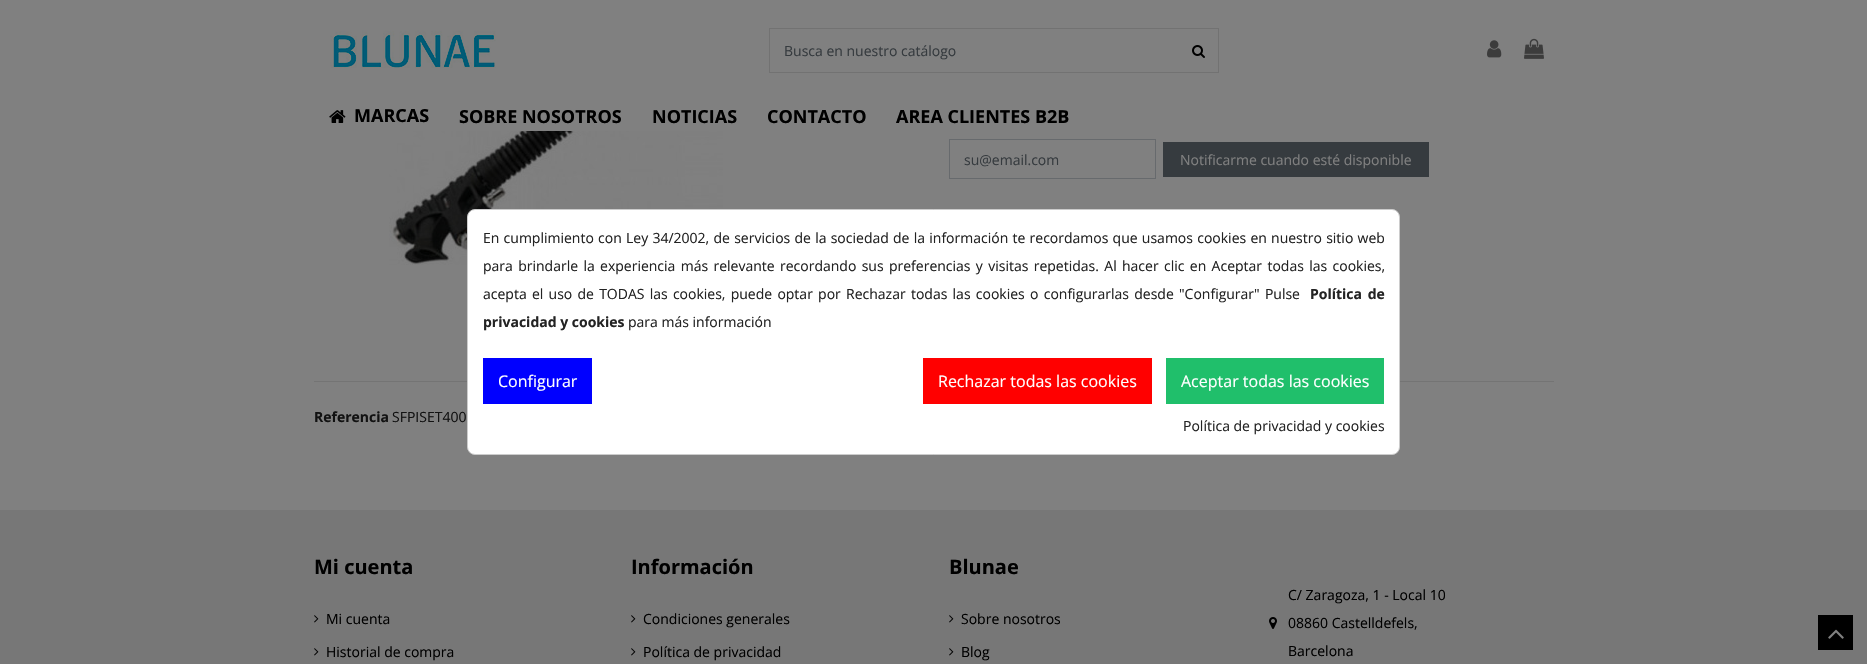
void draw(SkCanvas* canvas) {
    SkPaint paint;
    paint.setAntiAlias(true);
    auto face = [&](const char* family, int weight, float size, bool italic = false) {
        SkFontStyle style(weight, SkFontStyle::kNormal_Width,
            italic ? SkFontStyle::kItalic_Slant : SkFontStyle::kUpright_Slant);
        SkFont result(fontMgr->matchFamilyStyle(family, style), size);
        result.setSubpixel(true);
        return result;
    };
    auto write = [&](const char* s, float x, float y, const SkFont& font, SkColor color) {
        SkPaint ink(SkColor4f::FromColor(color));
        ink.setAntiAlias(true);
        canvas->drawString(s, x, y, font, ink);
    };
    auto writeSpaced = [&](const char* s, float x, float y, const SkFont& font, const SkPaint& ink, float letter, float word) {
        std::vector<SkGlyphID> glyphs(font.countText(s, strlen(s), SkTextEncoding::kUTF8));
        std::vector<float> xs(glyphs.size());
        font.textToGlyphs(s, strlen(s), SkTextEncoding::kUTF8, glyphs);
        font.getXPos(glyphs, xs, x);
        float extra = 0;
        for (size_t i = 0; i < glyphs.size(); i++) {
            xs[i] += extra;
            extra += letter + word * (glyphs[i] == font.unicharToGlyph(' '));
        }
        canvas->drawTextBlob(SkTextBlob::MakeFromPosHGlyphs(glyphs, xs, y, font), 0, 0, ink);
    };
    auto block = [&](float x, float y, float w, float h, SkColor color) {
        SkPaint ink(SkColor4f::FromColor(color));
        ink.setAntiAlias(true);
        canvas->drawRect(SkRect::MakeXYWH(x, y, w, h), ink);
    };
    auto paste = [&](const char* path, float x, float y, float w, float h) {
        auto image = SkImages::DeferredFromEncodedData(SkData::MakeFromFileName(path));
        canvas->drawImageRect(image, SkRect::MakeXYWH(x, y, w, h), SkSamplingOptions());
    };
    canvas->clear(SkColorSetRGB(128, 128, 128));
    paste("pic1.png", 330, 30, 166, 38);
    paint.setStyle(SkPaint::kStroke_Style);
    paint.setStrokeWidth(1);
    paint.setColor(SkColorSetRGB(114, 114, 114));
    canvas->drawRect(SkRect::MakeXYWH(769.5f, 28.5f, 449, 44), paint);
    auto kFont1 = face("Open Sans", 400, 14);
    write("Busca en nuestro catálogo", 784, 56, kFont1, SkColorSetRGB(54, 59, 63));
    paste("pic2.png", 1192, 45, 13, 13);
    paste("pic3.png", 1487, 40, 15, 18);
    paste("pic4.png", 1524, 38, 20, 21);
    paste("pic5.png", 329, 110, 17, 13);
    auto kFont2 = face("Open Sans", 700, 18);
    write("MARCAS", 354, 122, kFont2, SK_ColorBLACK);
    write("SOBRE NOSOTROS", 459, 123, kFont2, SK_ColorBLACK);
    write("NOTICIAS", 652, 123, kFont2, SK_ColorBLACK);
    write("CONTACTO", 767, 123, kFont2, SK_ColorBLACK);
    write("AREA CLIENTES B2B", 896, 123, kFont2, SK_ColorBLACK);
    paste("pic6.png", 389, 131, 334, 134);
    paint.setColor(SkColorSetRGB(103, 106, 109));
    canvas->drawRect(SkRect::MakeXYWH(949.5f, 139.5f, 206, 39), paint);
    write("su@email.com", 964, 165, kFont1, SkColorSetRGB(54, 59, 63));
    block(1163, 142, 266, 35, SkColorSetRGB(54, 59, 63));
    write("Notificarme cuando esté disponible", 1180, 165, kFont1, SkColorSetRGB(128, 128, 128));
    block(314, 381, 1240, 1, SkColorSetRGB(116, 116, 116));
    auto kFont3 = face("Open Sans", 700, 14);
    write("Referencia", 314, 422, kFont3, SkColorSetRGB(18, 18, 18));
    write("SFPISET400", 392, 422, kFont1, SkColorSetRGB(18, 18, 18));
    block(0, 510, 1867, 154, SkColorSetRGB(119, 119, 119));
    auto kFont4 = face("Open Sans", 700, 20);
    write("Mi cuenta", 314, 574, kFont4, SK_ColorBLACK);
    paste("pic7.png", 314, 615, 5, 8);
    write("Mi cuenta", 326, 624, kFont1, SK_ColorBLACK);
    paste("pic7.png", 314, 648, 5, 8);
    write("Historial de compra", 326, 657, kFont1, SK_ColorBLACK);
    write("Información", 631, 574, kFont4, SK_ColorBLACK);
    paste("pic7.png", 631, 615, 5, 8);
    write("Condiciones generales", 643, 624, kFont1, SK_ColorBLACK);
    paste("pic7.png", 631, 648, 5, 8);
    write("Política de privacidad", 643, 657, kFont1, SK_ColorBLACK);
    write("Blunae", 949, 574, kFont4, SK_ColorBLACK);
    paste("pic7.png", 949, 615, 5, 8);
    write("Sobre nosotros", 961, 624, kFont1, SK_ColorBLACK);
    paste("pic7.png", 949, 648, 5, 8);
    write("Blog", 961, 657, kFont1, SK_ColorBLACK);
    paste("pic8.png", 1269, 617, 8, 12);
    write("C/ Zaragoza, 1 - Local 10", 1288, 600, kFont1, SK_ColorBLACK);
    write("08860 Castelldefels,", 1288, 628, kFont1, SK_ColorBLACK);
    write("Barcelona", 1288, 656, kFont1, SK_ColorBLACK);
    paint.setStyle(SkPaint::kFill_Style);
    paint.setColor(SK_ColorWHITE);
    canvas->drawRoundRect(SkRect::MakeXYWH(467.5f, 209.5f, 932, 245), 7.5f, 7.5f, paint);
    paint.setStyle(SkPaint::kStroke_Style);
    paint.setColor(SkColorSetRGB(204, 204, 204));
    canvas->drawRoundRect(SkRect::MakeXYWH(467.5f, 209.5f, 932, 245), 7.5f, 7.5f, paint);
    paint.setStyle(SkPaint::kFill_Style);
    paint.setColor(SkColorSetRGB(35, 35, 35));
    writeSpaced("En cumplimiento con Ley 34/2002, de servicios de la sociedad de la información te recordamos que usamos cookies en nuestro sitio web", 483, 243, kFont1, paint, 0, 0.6f);
    writeSpaced("para brindarle la experiencia más relevante recordando sus preferencias y visitas repetidas. Al hacer clic en Aceptar todas las cookies,", 483, 271, kFont1, paint, 0, 1.7f);
    writeSpaced("acepta el uso de TODAS las cookies, puede optar por Rechazar todas las cookies o configurarlas desde \"Configurar\" Pulse", 483, 299, kFont1, paint, 0, 1.6f);
    writeSpaced("Política de", 1310, 299, kFont3, paint, 0, 2);
    write("privacidad y cookies", 483, 327, kFont3, SkColorSetRGB(35, 35, 35));
    write("para más información", 628, 327, kFont1, SkColorSetRGB(35, 35, 35));
    block(483, 358, 109, 46, SkColorSetRGB(0, 0, 255));
    auto kFont5 = face("Open Sans", 400, 16);
    write("Configurar", 498, 387, kFont5, SK_ColorWHITE);
    block(923, 358, 229, 46, SkColorSetRGB(255, 0, 0));
    write("Rechazar todas las cookies", 938, 387, kFont5, SK_ColorWHITE);
    block(1166, 358, 218, 46, SkColorSetRGB(32, 191, 107));
    write("Aceptar todas las cookies", 1181, 387, kFont5, SK_ColorWHITE);
    write("Política de privacidad y cookies", 1183, 431, kFont1, SkColorSetRGB(35, 35, 35));
    block(1818, 615, 35, 35, SK_ColorBLACK);
    paste("pic9.png", 1828, 629, 16, 10);
}
